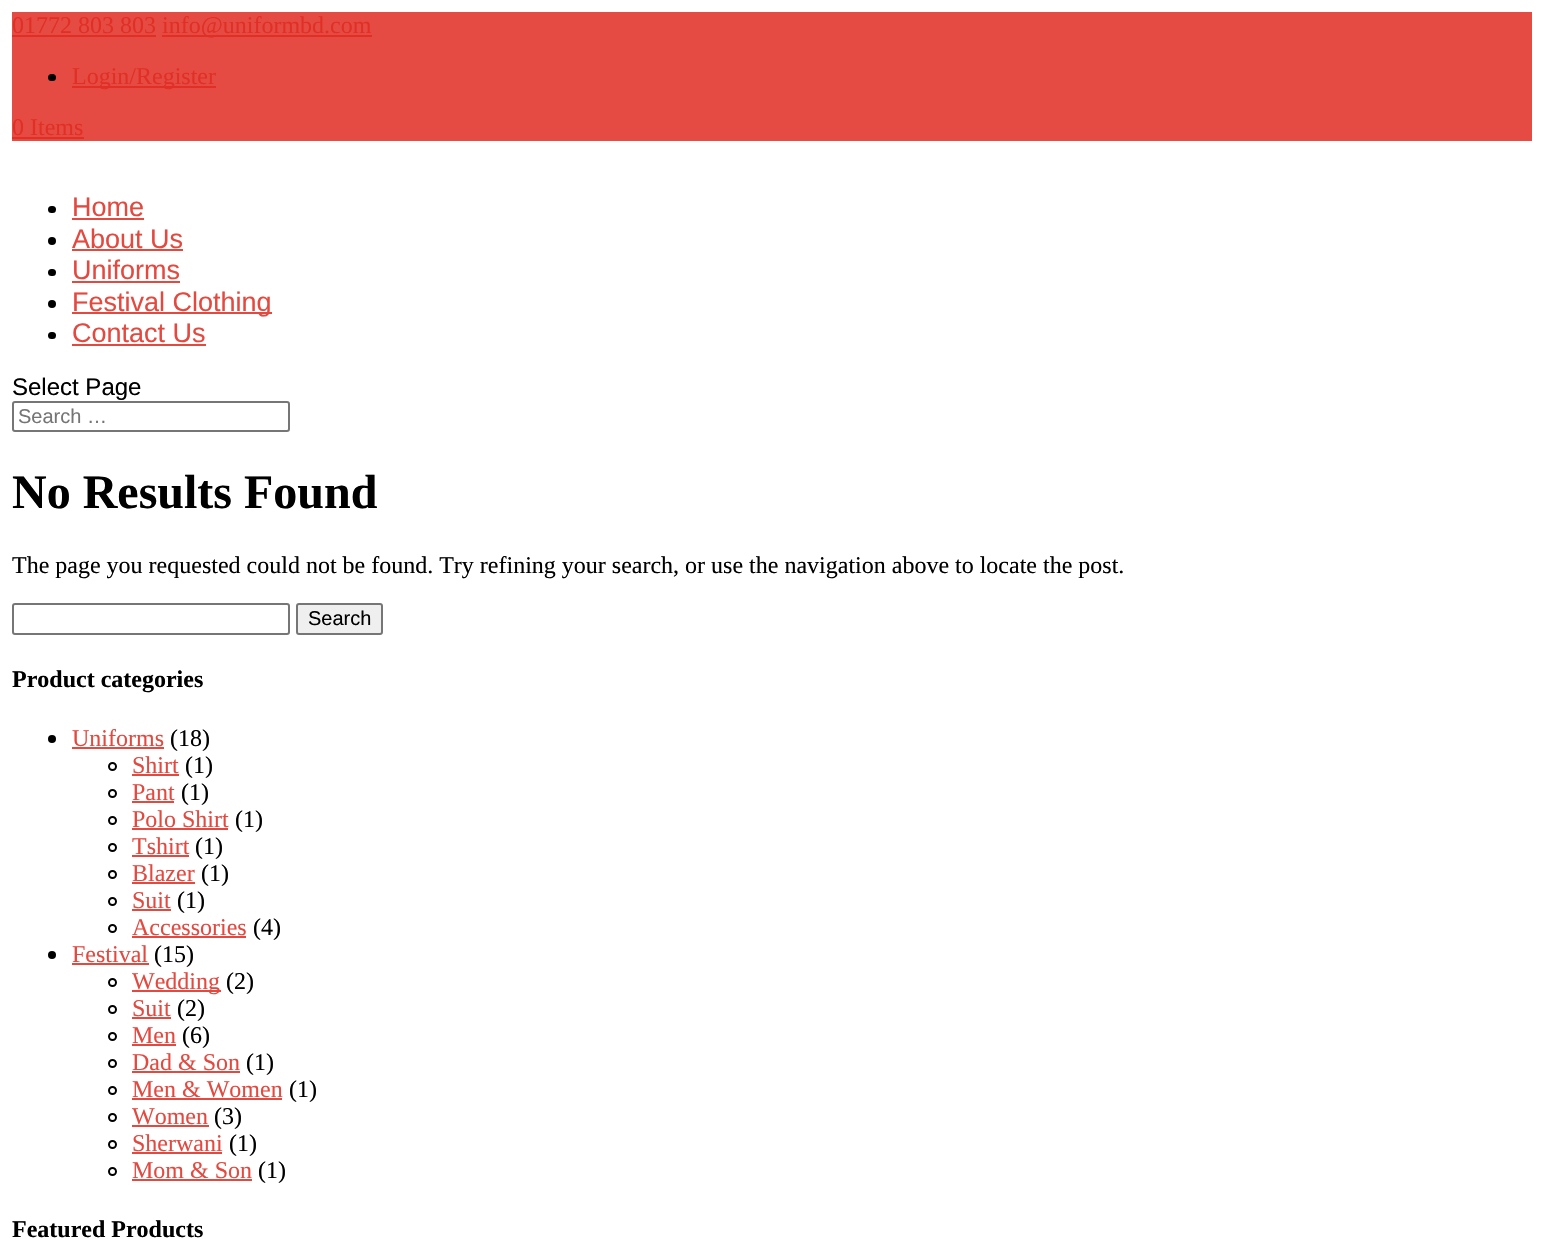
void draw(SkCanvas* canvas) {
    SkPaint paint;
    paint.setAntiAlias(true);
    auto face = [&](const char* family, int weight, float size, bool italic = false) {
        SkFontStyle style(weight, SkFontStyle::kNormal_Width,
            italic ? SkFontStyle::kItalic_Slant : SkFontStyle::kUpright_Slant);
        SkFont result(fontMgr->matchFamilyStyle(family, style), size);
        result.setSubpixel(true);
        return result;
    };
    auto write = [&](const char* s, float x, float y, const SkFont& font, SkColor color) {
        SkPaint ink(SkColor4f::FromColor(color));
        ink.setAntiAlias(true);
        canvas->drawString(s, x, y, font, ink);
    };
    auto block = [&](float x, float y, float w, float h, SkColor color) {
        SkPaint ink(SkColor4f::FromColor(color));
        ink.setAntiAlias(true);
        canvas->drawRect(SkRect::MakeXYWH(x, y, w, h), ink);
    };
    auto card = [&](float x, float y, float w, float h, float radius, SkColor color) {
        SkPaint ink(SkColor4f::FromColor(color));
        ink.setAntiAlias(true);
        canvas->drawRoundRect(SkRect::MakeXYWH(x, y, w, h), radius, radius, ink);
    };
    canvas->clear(SK_ColorWHITE);
    block(12, 12, 1520, 129, SkColorSetRGB(229, 75, 66));
    auto kFont1 = face("Liberation Serif", 400, 24);
    write("01772 803 803", 12, 33, kFont1, SkColorSetRGB(225, 47, 37));
    block(12, 35, 144, 2, SkColorSetRGB(225, 47, 37));
    block(162, 35, 210, 2, SkColorSetRGB(225, 47, 37));
    write("info@uniformbd.com", 162, 33, kFont1, SkColorSetRGB(225, 47, 37));
    card(48, 74, 8, 7, 3.5f, SK_ColorBLACK);
    block(72, 86, 144, 2, SkColorSetRGB(225, 47, 37));
    write("Login/Register", 72, 84, kFont1, SkColorSetRGB(225, 47, 37));
    write("0 Items", 12, 135, kFont1, SkColorSetRGB(225, 47, 37));
    block(12, 137, 72, 2, SkColorSetRGB(225, 47, 37));
    card(48, 206, 8, 7, 3.5f, SK_ColorBLACK);
    auto kFont2 = face("Liberation Sans", 400, 27);
    write("Home", 72, 216, kFont2, SkColorSetRGB(228, 73, 63));
    block(72, 218, 72, 2, SkColorSetRGB(228, 73, 63));
    paint.setColor(SK_ColorBLACK);
    canvas->drawCircle(52, 241, 4, paint);
    write("About Us", 72, 248, kFont2, SkColorSetRGB(228, 73, 63));
    block(72, 249, 111, 2, SkColorSetRGB(228, 73, 63));
    card(48, 269, 8, 7, 3.5f, SK_ColorBLACK);
    write("Uniforms", 72, 279, kFont2, SkColorSetRGB(228, 73, 63));
    block(72, 281, 108, 2, SkColorSetRGB(228, 73, 63));
    canvas->drawCircle(52, 304, 4, paint);
    block(72, 312, 200, 2, SkColorSetRGB(228, 73, 63));
    write("Festival Clothing", 72, 311, kFont2, SkColorSetRGB(228, 73, 63));
    card(48, 332, 8, 7, 3.5f, SK_ColorBLACK);
    write("Contact Us", 72, 342, kFont2, SkColorSetRGB(228, 73, 63));
    block(72, 344, 134, 2, SkColorSetRGB(228, 73, 63));
    auto kFont3 = face("Liberation Sans", 400, 24);
    write("Select Page", 12, 395, kFont3, SK_ColorBLACK);
    paint.setStyle(SkPaint::kStroke_Style);
    paint.setStrokeWidth(2);
    paint.setColor(SkColorSetRGB(118, 118, 118));
    canvas->drawRoundRect(SkRect::MakeXYWH(13, 402, 276, 29), 2, 2, paint);
    auto kFont4 = face("Liberation Sans", 400, 20);
    write("Search …", 18, 423, kFont4, SkColorSetRGB(117, 117, 117));
    auto kFont5 = face("Liberation Serif", 700, 48);
    write("No Results Found", 12, 508, kFont5, SK_ColorBLACK);
    write("The page you requested could not be found. Try refining your search, or use the navigation above to locate the post.", 12, 573, kFont1, SK_ColorBLACK);
    canvas->drawRoundRect(SkRect::MakeXYWH(13, 604, 276, 30), 2, 2, paint);
    paint.setStyle(SkPaint::kFill_Style);
    paint.setColor(SkColorSetRGB(239, 239, 239));
    canvas->drawRoundRect(SkRect::MakeXYWH(297, 604, 85, 30), 2, 2, paint);
    paint.setStyle(SkPaint::kStroke_Style);
    paint.setColor(SkColorSetRGB(118, 118, 118));
    canvas->drawRoundRect(SkRect::MakeXYWH(297, 604, 85, 30), 2, 2, paint);
    write("Search", 308, 625, kFont4, SK_ColorBLACK);
    auto kFont6 = face("Liberation Serif", 700, 24);
    write("Product categories", 12, 687, kFont6, SK_ColorBLACK);
    paint.setStyle(SkPaint::kFill_Style);
    paint.setColor(SK_ColorBLACK);
    canvas->drawCircle(52, 739, 4, paint);
    write("Uniforms", 72, 746, kFont1, SkColorSetRGB(228, 73, 63));
    block(72, 747, 92, 2, SkColorSetRGB(228, 73, 63));
    write("(18)", 170, 746, kFont1, SK_ColorBLACK);
    paint.setStyle(SkPaint::kStroke_Style);
    canvas->drawCircle(112.5f, 766.5f, 3.5f, paint);
    write("Shirt", 132, 773, kFont1, SkColorSetRGB(228, 73, 63));
    block(132, 774, 47, 2, SkColorSetRGB(228, 73, 63));
    write("(1)", 185, 773, kFont1, SK_ColorBLACK);
    canvas->drawCircle(112.5f, 793.5f, 3.5f, paint);
    write("Pant", 132, 800, kFont1, SkColorSetRGB(228, 73, 63));
    block(132, 801, 42, 2, SkColorSetRGB(228, 73, 63));
    write("(1)", 181, 800, kFont1, SK_ColorBLACK);
    canvas->drawCircle(112.5f, 820.5f, 3.5f, paint);
    write("Polo Shirt", 132, 827, kFont1, SkColorSetRGB(228, 73, 63));
    block(132, 828, 96, 2, SkColorSetRGB(228, 73, 63));
    write("(1)", 235, 827, kFont1, SK_ColorBLACK);
    canvas->drawCircle(112.5f, 847.5f, 3.5f, paint);
    write("Tshirt", 132, 854, kFont1, SkColorSetRGB(228, 73, 63));
    block(132, 855, 57, 2, SkColorSetRGB(228, 73, 63));
    write("(1)", 195, 854, kFont1, SK_ColorBLACK);
    canvas->drawCircle(112.5f, 874.5f, 3.5f, paint);
    write("Blazer", 132, 881, kFont1, SkColorSetRGB(228, 73, 63));
    block(132, 882, 63, 2, SkColorSetRGB(228, 73, 63));
    write("(1)", 201, 881, kFont1, SK_ColorBLACK);
    canvas->drawCircle(112.5f, 901.5f, 3.5f, paint);
    write("Suit", 132, 908, kFont1, SkColorSetRGB(228, 73, 63));
    block(132, 909, 39, 2, SkColorSetRGB(228, 73, 63));
    write("(1)", 177, 908, kFont1, SK_ColorBLACK);
    canvas->drawCircle(112.5f, 928.5f, 3.5f, paint);
    write("Accessories", 132, 935, kFont1, SkColorSetRGB(228, 73, 63));
    block(132, 936, 114, 2, SkColorSetRGB(228, 73, 63));
    write("(4)", 253, 935, kFont1, SK_ColorBLACK);
    paint.setStyle(SkPaint::kFill_Style);
    canvas->drawCircle(52, 955, 4, paint);
    write("Festival", 72, 962, kFont1, SkColorSetRGB(228, 73, 63));
    block(72, 963, 77, 2, SkColorSetRGB(228, 73, 63));
    write("(15)", 154, 962, kFont1, SK_ColorBLACK);
    paint.setStyle(SkPaint::kStroke_Style);
    canvas->drawCircle(112.5f, 982.5f, 3.5f, paint);
    block(132, 990, 89, 2, SkColorSetRGB(228, 73, 63));
    write("Wedding", 132, 989, kFont1, SkColorSetRGB(228, 73, 63));
    write("(2)", 226, 989, kFont1, SK_ColorBLACK);
    canvas->drawCircle(112.5f, 1009.5f, 3.5f, paint);
    write("Suit", 132, 1016, kFont1, SkColorSetRGB(228, 73, 63));
    block(132, 1017, 39, 2, SkColorSetRGB(228, 73, 63));
    write("(2)", 177, 1016, kFont1, SK_ColorBLACK);
    canvas->drawCircle(112.5f, 1036.5f, 3.5f, paint);
    write("Men", 132, 1043, kFont1, SkColorSetRGB(228, 73, 63));
    block(132, 1044, 44, 2, SkColorSetRGB(228, 73, 63));
    write("(6)", 182, 1043, kFont1, SK_ColorBLACK);
    canvas->drawCircle(112.5f, 1063.5f, 3.5f, paint);
    write("Dad & Son", 132, 1070, kFont1, SkColorSetRGB(228, 73, 63));
    block(132, 1071, 108, 2, SkColorSetRGB(228, 73, 63));
    write("(1)", 246, 1070, kFont1, SK_ColorBLACK);
    canvas->drawCircle(112.5f, 1090.5f, 3.5f, paint);
    write("Men & Women", 132, 1097, kFont1, SkColorSetRGB(228, 73, 63));
    block(132, 1098, 150, 2, SkColorSetRGB(228, 73, 63));
    write("(1)", 289, 1097, kFont1, SK_ColorBLACK);
    canvas->drawCircle(112.5f, 1117.5f, 3.5f, paint);
    write("Women", 132, 1124, kFont1, SkColorSetRGB(228, 73, 63));
    block(132, 1125, 77, 2, SkColorSetRGB(228, 73, 63));
    write("(3)", 214, 1124, kFont1, SK_ColorBLACK);
    canvas->drawCircle(112.5f, 1144.5f, 3.5f, paint);
    write("Sherwani", 132, 1151, kFont1, SkColorSetRGB(228, 73, 63));
    block(132, 1152, 90, 2, SkColorSetRGB(228, 73, 63));
    write("(1)", 229, 1151, kFont1, SK_ColorBLACK);
    canvas->drawCircle(112.5f, 1171.5f, 3.5f, paint);
    write("Mom & Son", 132, 1178, kFont1, SkColorSetRGB(228, 73, 63));
    block(132, 1179, 120, 2, SkColorSetRGB(228, 73, 63));
    write("(1)", 258, 1178, kFont1, SK_ColorBLACK);
    write("Featured Products", 12, 1237, kFont6, SK_ColorBLACK);
}
